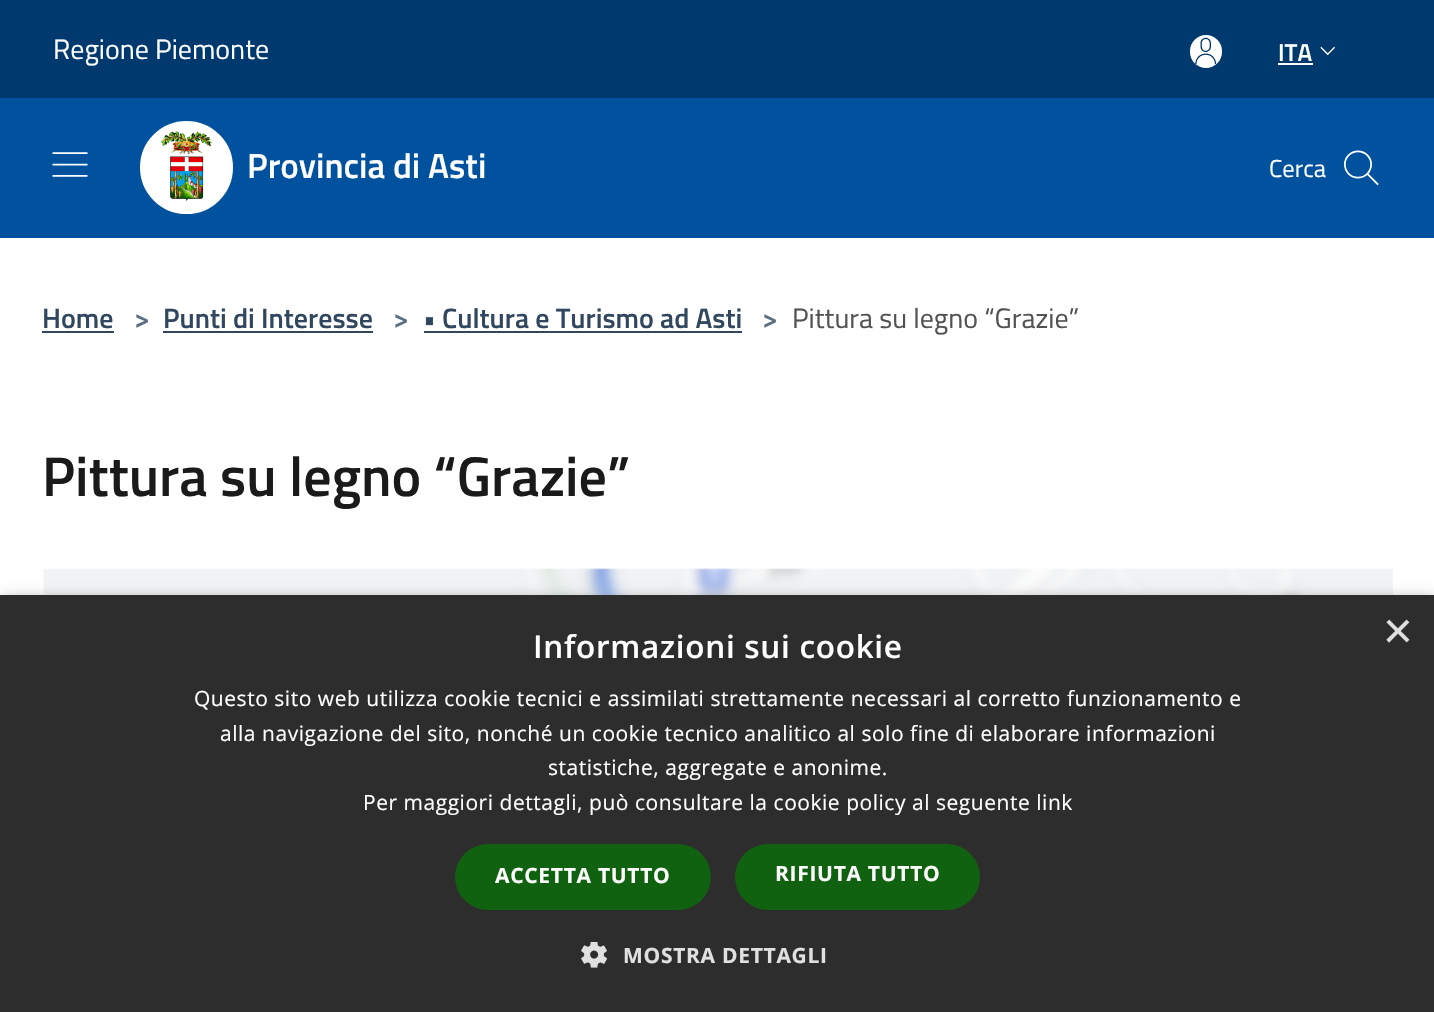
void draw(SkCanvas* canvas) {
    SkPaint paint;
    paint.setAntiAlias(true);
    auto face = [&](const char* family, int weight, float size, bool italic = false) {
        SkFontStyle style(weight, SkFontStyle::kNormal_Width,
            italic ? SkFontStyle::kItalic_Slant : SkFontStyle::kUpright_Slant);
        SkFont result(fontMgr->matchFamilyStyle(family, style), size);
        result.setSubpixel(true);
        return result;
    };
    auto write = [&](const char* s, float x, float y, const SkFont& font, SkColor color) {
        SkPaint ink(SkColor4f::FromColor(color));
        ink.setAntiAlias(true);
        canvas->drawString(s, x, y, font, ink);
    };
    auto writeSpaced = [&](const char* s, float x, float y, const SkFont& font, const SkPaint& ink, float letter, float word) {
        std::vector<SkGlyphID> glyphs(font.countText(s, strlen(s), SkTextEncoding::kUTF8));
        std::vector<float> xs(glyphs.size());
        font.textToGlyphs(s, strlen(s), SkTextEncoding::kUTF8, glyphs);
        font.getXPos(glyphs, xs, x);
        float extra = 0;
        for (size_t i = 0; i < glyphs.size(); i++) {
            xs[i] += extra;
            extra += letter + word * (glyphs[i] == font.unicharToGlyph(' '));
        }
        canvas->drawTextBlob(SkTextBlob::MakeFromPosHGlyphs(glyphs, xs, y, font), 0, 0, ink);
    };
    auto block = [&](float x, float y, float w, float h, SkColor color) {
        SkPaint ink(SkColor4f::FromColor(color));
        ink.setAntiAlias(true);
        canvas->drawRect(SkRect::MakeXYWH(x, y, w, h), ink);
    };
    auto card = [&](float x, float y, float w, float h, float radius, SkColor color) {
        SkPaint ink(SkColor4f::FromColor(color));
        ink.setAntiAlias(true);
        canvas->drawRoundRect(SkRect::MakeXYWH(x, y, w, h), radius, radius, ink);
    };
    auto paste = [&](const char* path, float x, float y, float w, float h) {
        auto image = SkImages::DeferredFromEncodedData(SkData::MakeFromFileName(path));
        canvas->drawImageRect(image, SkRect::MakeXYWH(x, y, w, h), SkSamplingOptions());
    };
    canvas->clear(SK_ColorWHITE);
    block(0, 0, 1434, 98, SkColorSetRGB(0, 57, 110));
    auto kFont1 = face("Titillium Web", 400, 28);
    write("Regione Piemonte", 53, 59, kFont1, SK_ColorWHITE);
    card(1190, 35, 32, 33, 16, SK_ColorWHITE);
    paste("pic1.png", 1195, 37, 22, 27);
    auto kFont2 = face("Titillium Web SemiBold", 600, 24.5f);
    write("ITA", 1278, 61, kFont2, SK_ColorWHITE);
    block(1278, 63, 35, 2, SK_ColorWHITE);
    paste("pic2.png", 1320, 46, 15, 10);
    block(0, 98, 1434, 140, SkColorSetRGB(0, 82, 158));
    paste("pic3.png", 52, 152, 36, 25);
    paint.setColor(SK_ColorWHITE);
    canvas->drawCircle(186.5f, 167.5f, 45.5f, paint);
    paint.setStyle(SkPaint::kStroke_Style);
    paint.setStrokeWidth(2);
    canvas->drawCircle(186.5f, 167.5f, 45.5f, paint);
    paste("pic4.png", 161, 131, 51, 70);
    auto kFont3 = face("Titillium Web SemiBold", 600, 35);
    write("Provincia di Asti", 247, 178, kFont3, SK_ColorWHITE);
    auto kFont4 = face("Titillium Web", 400, 24.5f);
    write("Cerca", 1269, 177, kFont4, SK_ColorWHITE);
    paste("pic5.png", 1344, 150, 35, 36);
    auto kFont5 = face("Titillium Web SemiBold", 600, 28);
    write("Home", 42, 328, kFont5, SkColorSetRGB(48, 71, 95));
    block(42, 331, 72, 2, SkColorSetRGB(48, 71, 95));
    write(">", 134, 328, kFont5, SkColorSetRGB(93, 112, 131));
    write("Punti di Interesse", 163, 328, kFont5, SkColorSetRGB(48, 71, 95));
    block(163, 331, 210, 2, SkColorSetRGB(48, 71, 95));
    write(">", 393, 328, kFont5, SkColorSetRGB(93, 112, 131));
    write("• Cultura e Turismo ad Asti", 423, 328, kFont5, SkColorSetRGB(48, 71, 95));
    block(424, 331, 318, 2, SkColorSetRGB(48, 71, 95));
    write(">", 762, 328, kFont5, SkColorSetRGB(93, 112, 131));
    write("Pittura su legno “Grazie”", 792, 328, kFont1, SkColorSetRGB(82, 82, 82));
    auto kFont6 = face("Titillium Web SemiBold", 600, 56);
    write("Pittura su legno “Grazie”", 42, 496, kFont6, SkColorSetRGB(26, 26, 26));
    paste("pic6.png", 43, 568, 1350, 27);
    paint.setStyle(SkPaint::kFill_Style);
    paint.setColor(SkColorSetARGB(89, 0, 0, 0));
    paint.setMaskFilter(SkMaskFilter::MakeBlur(kNormal_SkBlurStyle, 7));
    canvas->drawRect(SkRect::MakeXYWH(2, 599, 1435, 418), paint);
    paint.setMaskFilter(nullptr);
    block(0, 595, 1434, 417, SkColorSetRGB(45, 45, 45));
    auto kFont7 = face("Open Sans", 600, 31.5f);
    paint.setColor(SK_ColorWHITE);
    writeSpaced("Informazioni sui cookie", 533, 658, kFont7, paint, 0.7f, 0);
    auto kFont8 = face("Liberation Sans", 400, 51);
    write("×", 1383, 648, kFont8, SkColorSetRGB(224, 224, 224));
    auto kFont9 = face("Open Sans", 400, 21);
    writeSpaced("Questo sito web utilizza cookie tecnici e assimilati strettamente necessari al corretto funzionamento e", 194, 706, kFont9, paint, 0.53f, 0);
    writeSpaced("alla navigazione del sito, nonché un cookie tecnico analitico al solo fine di elaborare informazioni", 220, 741, kFont9, paint, 0.53f, 0);
    writeSpaced("statistiche, aggregate e anonime.", 548, 775, kFont9, paint, 0.53f, 0);
    writeSpaced("Per maggiori dettagli, può consultare la cookie policy al seguente link", 363, 810, kFont9, paint, 0.53f, 0);
    card(455, 844, 256, 66, 33, SkColorSetRGB(16, 97, 16));
    auto kFont10 = face("Open Sans", 700, 21);
    writeSpaced("ACCETTA TUTTO", 495, 883, kFont10, paint, 0.7f, 0);
    card(735, 844, 245, 66, 33, SkColorSetRGB(16, 97, 16));
    writeSpaced("RIFIUTA TUTTO", 775, 881, kFont10, paint, 0.7f, 0);
    paste("pic7.png", 581, 942, 26, 26);
    paint.setColor(SkColorSetRGB(224, 224, 224));
    writeSpaced("MOSTRA DETTAGLI", 623, 963, kFont10, paint, 0.7f, 0);
}
